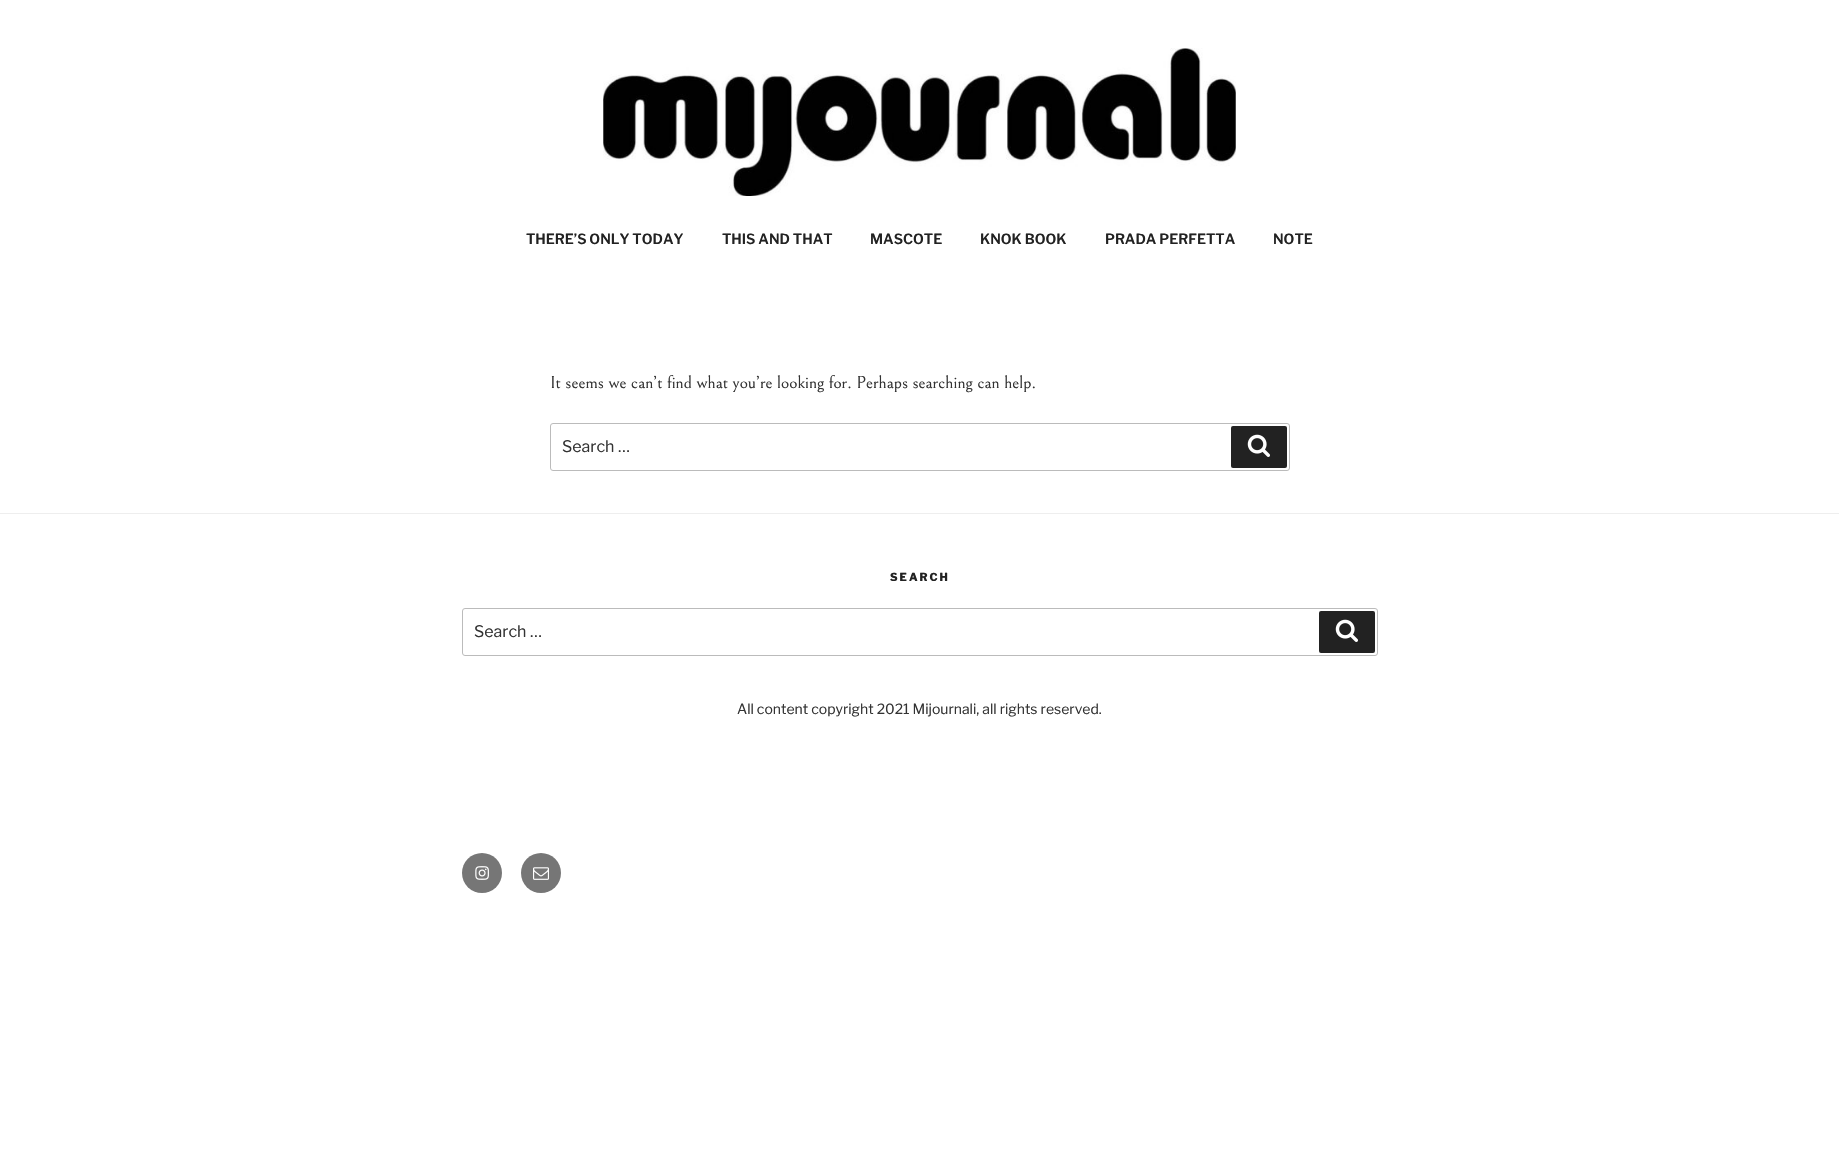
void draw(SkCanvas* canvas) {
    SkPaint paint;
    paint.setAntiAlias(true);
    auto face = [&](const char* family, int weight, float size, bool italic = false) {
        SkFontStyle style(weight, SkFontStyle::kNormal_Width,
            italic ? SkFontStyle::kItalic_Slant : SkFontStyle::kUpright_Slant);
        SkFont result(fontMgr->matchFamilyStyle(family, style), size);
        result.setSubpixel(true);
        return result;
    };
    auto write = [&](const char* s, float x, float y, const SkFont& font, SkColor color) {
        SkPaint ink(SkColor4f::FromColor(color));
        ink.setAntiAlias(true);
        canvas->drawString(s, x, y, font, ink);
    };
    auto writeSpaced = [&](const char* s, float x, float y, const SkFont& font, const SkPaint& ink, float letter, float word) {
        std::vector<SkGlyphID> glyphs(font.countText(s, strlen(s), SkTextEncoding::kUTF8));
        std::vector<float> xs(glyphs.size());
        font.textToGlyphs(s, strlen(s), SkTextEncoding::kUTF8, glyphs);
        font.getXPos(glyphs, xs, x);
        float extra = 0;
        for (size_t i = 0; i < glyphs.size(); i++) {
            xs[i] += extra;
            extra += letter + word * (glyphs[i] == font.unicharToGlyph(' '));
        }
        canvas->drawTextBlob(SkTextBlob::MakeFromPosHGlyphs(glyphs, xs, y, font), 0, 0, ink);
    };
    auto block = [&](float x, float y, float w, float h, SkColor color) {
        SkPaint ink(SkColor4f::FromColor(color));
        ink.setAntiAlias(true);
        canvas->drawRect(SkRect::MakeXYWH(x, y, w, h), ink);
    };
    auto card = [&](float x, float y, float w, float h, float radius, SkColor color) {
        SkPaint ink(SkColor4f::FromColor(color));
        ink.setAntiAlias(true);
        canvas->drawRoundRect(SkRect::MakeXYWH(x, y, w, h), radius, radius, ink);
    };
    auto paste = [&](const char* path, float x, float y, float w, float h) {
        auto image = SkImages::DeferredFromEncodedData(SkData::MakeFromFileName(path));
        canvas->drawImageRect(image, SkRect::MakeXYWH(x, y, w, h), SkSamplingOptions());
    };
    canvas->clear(SK_ColorWHITE);
    paste("pic1.png", 603, 48, 633, 148);
    auto kFont1 = face("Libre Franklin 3", 100, 14);
    write("THERE’S ONLY TODAY", 526, 244, kFont1, SkColorSetRGB(34, 34, 34));
    write("THIS AND THAT", 722, 244, kFont1, SkColorSetRGB(34, 34, 34));
    write("MASCOTE", 870, 244, kFont1, SkColorSetRGB(34, 34, 34));
    write("KNOK BOOK", 980, 244, kFont1, SkColorSetRGB(34, 34, 34));
    write("PRADA PERFETTA", 1105, 244, kFont1, SkColorSetRGB(34, 34, 34));
    write("NOTE", 1273, 244, kFont1, SkColorSetRGB(34, 34, 34));
    auto kFont2 = face("Bellefair", 400, 17.6f);
    write("It seems we can’t find what you’re looking for. Perhaps searching can help.", 550, 388, kFont2, SkColorSetRGB(51, 51, 51));
    paint.setStyle(SkPaint::kStroke_Style);
    paint.setStrokeWidth(1);
    paint.setColor(SkColorSetRGB(187, 187, 187));
    canvas->drawRoundRect(SkRect::MakeXYWH(550.5f, 423.5f, 739, 47), 2.5f, 2.5f, paint);
    auto kFont3 = face("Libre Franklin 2", 100, 16);
    write("Search …", 562, 452, kFont3, SkColorSetRGB(51, 51, 51));
    card(1231, 426, 56, 42, 2, SkColorSetRGB(34, 34, 34));
    paste("pic2.png", 1247, 434, 23, 23);
    block(0, 513, 1839, 1, SkColorSetRGB(238, 238, 238));
    auto kFont4 = face("Libre Franklin", 100, 11);
    paint.setStyle(SkPaint::kFill_Style);
    paint.setColor(SkColorSetRGB(34, 34, 34));
    writeSpaced("SEARCH", 890, 581, kFont4, paint, 2, 0);
    paint.setStyle(SkPaint::kStroke_Style);
    paint.setColor(SkColorSetRGB(187, 187, 187));
    canvas->drawRoundRect(SkRect::MakeXYWH(462.5f, 608.5f, 915, 47), 2.5f, 2.5f, paint);
    write("Search …", 474, 637, kFont3, SkColorSetRGB(51, 51, 51));
    card(1319, 611, 56, 42, 2, SkColorSetRGB(34, 34, 34));
    paste("pic2.png", 1335, 619, 23, 23);
    auto kFont5 = face("Libre Franklin 2", 100, 14);
    write("All content copyright 2021 Mijournali, all rights reserved.", 737, 714, kFont5, SkColorSetRGB(51, 51, 51));
    paint.setStyle(SkPaint::kFill_Style);
    paint.setColor(SkColorSetRGB(118, 118, 118));
    canvas->drawCircle(482, 873, 20, paint);
    paste("pic3.png", 475, 866, 14, 14);
    canvas->drawCircle(541, 873, 20, paint);
    paste("pic4.png", 533, 867, 16, 13);
}
